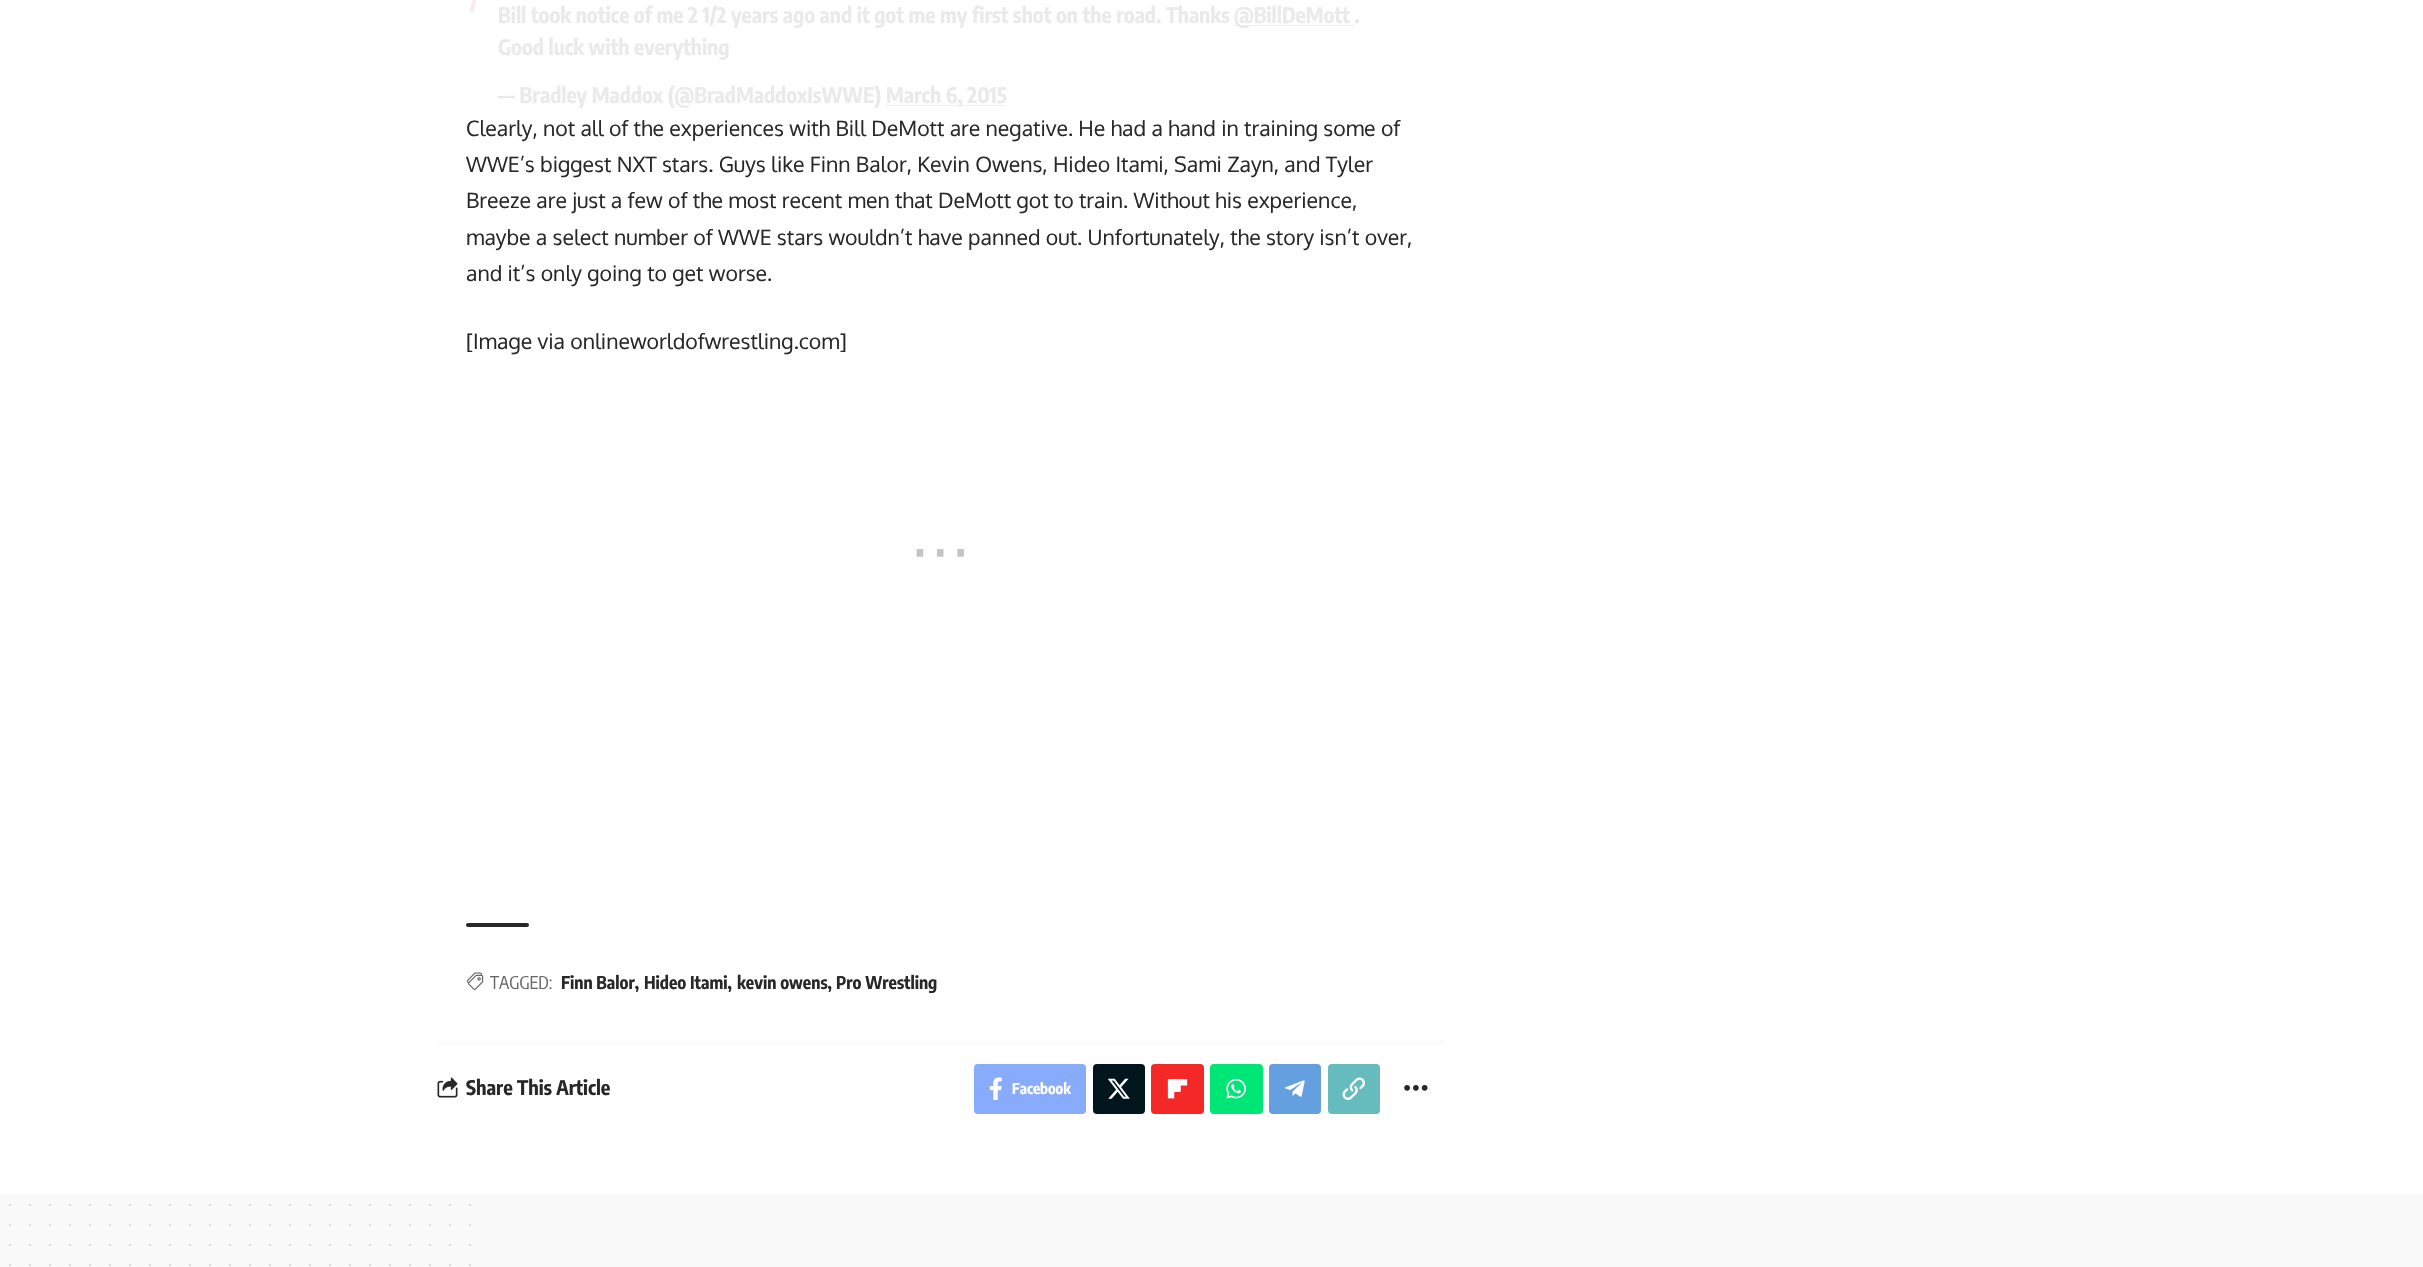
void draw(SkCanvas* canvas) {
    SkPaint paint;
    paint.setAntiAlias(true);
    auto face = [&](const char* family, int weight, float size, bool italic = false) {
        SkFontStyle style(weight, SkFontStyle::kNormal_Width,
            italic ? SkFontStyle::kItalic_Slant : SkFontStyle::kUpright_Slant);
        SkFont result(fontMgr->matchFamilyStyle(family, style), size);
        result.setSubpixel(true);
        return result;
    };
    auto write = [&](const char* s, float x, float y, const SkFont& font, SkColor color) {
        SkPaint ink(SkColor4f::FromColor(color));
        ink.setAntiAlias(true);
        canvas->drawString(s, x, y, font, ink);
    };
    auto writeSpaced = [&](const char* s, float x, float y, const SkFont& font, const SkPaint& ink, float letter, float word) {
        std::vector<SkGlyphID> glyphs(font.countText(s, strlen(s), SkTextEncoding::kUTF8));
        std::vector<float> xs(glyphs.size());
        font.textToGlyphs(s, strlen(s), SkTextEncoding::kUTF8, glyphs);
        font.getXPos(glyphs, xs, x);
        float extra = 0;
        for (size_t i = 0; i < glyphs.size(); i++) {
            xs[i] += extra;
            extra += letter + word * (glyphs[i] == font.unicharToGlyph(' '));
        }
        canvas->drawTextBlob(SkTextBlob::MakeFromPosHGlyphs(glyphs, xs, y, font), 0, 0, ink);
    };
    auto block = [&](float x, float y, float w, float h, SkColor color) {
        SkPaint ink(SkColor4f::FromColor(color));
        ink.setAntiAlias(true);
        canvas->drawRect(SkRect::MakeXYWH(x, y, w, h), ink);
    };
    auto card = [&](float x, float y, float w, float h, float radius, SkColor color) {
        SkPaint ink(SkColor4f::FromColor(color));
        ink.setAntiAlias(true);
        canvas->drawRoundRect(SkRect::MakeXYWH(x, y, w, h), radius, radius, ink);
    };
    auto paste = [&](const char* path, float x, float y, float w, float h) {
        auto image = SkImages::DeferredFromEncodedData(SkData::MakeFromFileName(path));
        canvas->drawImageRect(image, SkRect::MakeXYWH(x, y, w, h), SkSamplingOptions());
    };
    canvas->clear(SK_ColorWHITE);
    auto kFont1 = face("Oxygen", 400, 53);
    write("‘", 466, 40, kFont1, SkColorSetRGB(253, 232, 232));
    auto kFont2 = face("Encode Sans Condensed", 700, 21.25f);
    write("Bill took notice of me 2 1/2 years ago and it got me my first shot on the road. Thanks", 498, 23, kFont2, SkColorSetRGB(234, 234, 234));
    block(1234, 25, 121, 1, SkColorSetRGB(253, 232, 232));
    write("@BillDeMott .", 1234, 23, kFont2, SkColorSetRGB(234, 234, 234));
    write("Good luck with everything", 498, 55, kFont2, SkColorSetRGB(234, 234, 234));
    write("— Bradley Maddox (@BradMaddoxIsWWE)", 498, 103, kFont2, SkColorSetRGB(234, 234, 234));
    block(886, 105, 120, 1, SkColorSetRGB(253, 232, 232));
    write("March 6, 2015", 886, 103, kFont2, SkColorSetRGB(234, 234, 234));
    auto kFont3 = face("Oxygen", 400, 21.25f);
    write("Clearly, not all of the experiences with Bill DeMott are negative. He had a hand in training some of", 466, 136, kFont3, SkColorSetRGB(40, 40, 40));
    write("WWE’s biggest NXT stars. Guys like Finn Balor, Kevin Owens, Hideo Itami, Sami Zayn, and Tyler", 466, 172, kFont3, SkColorSetRGB(40, 40, 40));
    write("Breeze are just a few of the most recent men that DeMott got to train. Without his experience,", 466, 208, kFont3, SkColorSetRGB(40, 40, 40));
    write("maybe a select number of WWE stars wouldn’t have panned out. Unfortunately, the story isn’t over,", 466, 245, kFont3, SkColorSetRGB(40, 40, 40));
    write("and it’s only going to get worse.", 466, 281, kFont3, SkColorSetRGB(40, 40, 40));
    write("[Image via onlineworldofwrestling.com]", 466, 349, kFont3, SkColorSetRGB(40, 40, 40));
    auto kFont4 = face("Oxygen", 400, 78);
    paint.setColor(SkColorSetRGB(196, 196, 196));
    writeSpaced("···", 911, 578, kFont4, paint, 2.5f, 0);
    card(466, 923, 63, 4, 2, SkColorSetRGB(40, 40, 40));
    paste("pic1.png", 466, 972, 18, 18);
    auto kFont5 = face("Encode Sans Condensed", 400, 17.5f);
    write("TAGGED:", 490, 989, kFont5, SkColorSetRGB(102, 102, 102));
    auto kFont6 = face("Encode Sans Condensed", 700, 17.5f);
    write("Finn Balor,", 561, 989, kFont6, SkColorSetRGB(40, 40, 40));
    write("Hideo Itami,", 644, 989, kFont6, SkColorSetRGB(40, 40, 40));
    write("kevin owens,", 737, 989, kFont6, SkColorSetRGB(40, 40, 40));
    write("Pro Wrestling", 836, 989, kFont6, SkColorSetRGB(40, 40, 40));
    block(438, 1041, 1007, 4, SkColorSetRGB(251, 251, 251));
    paste("pic2.png", 437, 1077, 21, 21);
    auto kFont7 = face("Encode Sans Condensed", 700, 20);
    write("Share This Article", 466, 1095, kFont7, SkColorSetRGB(40, 40, 40));
    card(974, 1064, 112, 50, 4, SkColorSetRGB(137, 171, 252));
    paste("pic3.png", 989, 1077, 13, 23);
    auto kFont8 = face("Encode Sans Condensed", 700, 15);
    write("Facebook", 1012, 1094, kFont8, SK_ColorWHITE);
    card(1093, 1064, 52, 50, 4, SkColorSetRGB(0, 21, 28));
    paste("pic4.png", 1107, 1078, 23, 21);
    card(1151, 1064, 53, 50, 4, SkColorSetRGB(245, 40, 40));
    paste("pic5.png", 1167, 1079, 21, 20);
    card(1210, 1064, 53, 50, 4, SkColorSetRGB(0, 230, 118));
    paste("pic6.png", 1226, 1078, 20, 21);
    card(1269, 1064, 52, 50, 4, SkColorSetRGB(100, 159, 223));
    paste("pic7.png", 1285, 1080, 20, 17);
    card(1328, 1064, 52, 50, 4, SkColorSetRGB(102, 187, 191));
    paste("pic8.png", 1342, 1077, 23, 23);
    paste("pic9.png", 1404, 1085, 24, 6);
    block(0, 1195, 2423, 72, SkColorSetRGB(249, 249, 249));
    paint.setStyle(SkPaint::kStroke_Style);
    paint.setStrokeWidth(1.9f);
    paint.setStrokeCap(SkPaint::kRound_Cap);
    paint.setColor(SkColorSetRGB(207, 207, 207));
    paint.setPathEffect(SkDashPathEffect::Make({{0, 20}}, 0));
    canvas->drawPath(SkPathBuilder().moveTo(10, 1205).lineTo(470.2f, 1205).detach(), paint);
    paint.setPathEffect(nullptr);
    paint.setPathEffect(SkDashPathEffect::Make({{0, 20}}, 0));
    canvas->drawPath(SkPathBuilder().moveTo(10, 1225).lineTo(470.2f, 1225).detach(), paint);
    paint.setPathEffect(nullptr);
    paint.setPathEffect(SkDashPathEffect::Make({{0, 20}}, 0));
    canvas->drawPath(SkPathBuilder().moveTo(10, 1245).lineTo(470.2f, 1245).detach(), paint);
    paint.setPathEffect(nullptr);
    paint.setPathEffect(SkDashPathEffect::Make({{0, 20}}, 0));
    canvas->drawPath(SkPathBuilder().moveTo(10, 1265).lineTo(470.2f, 1265).detach(), paint);
    paint.setPathEffect(nullptr);
}
